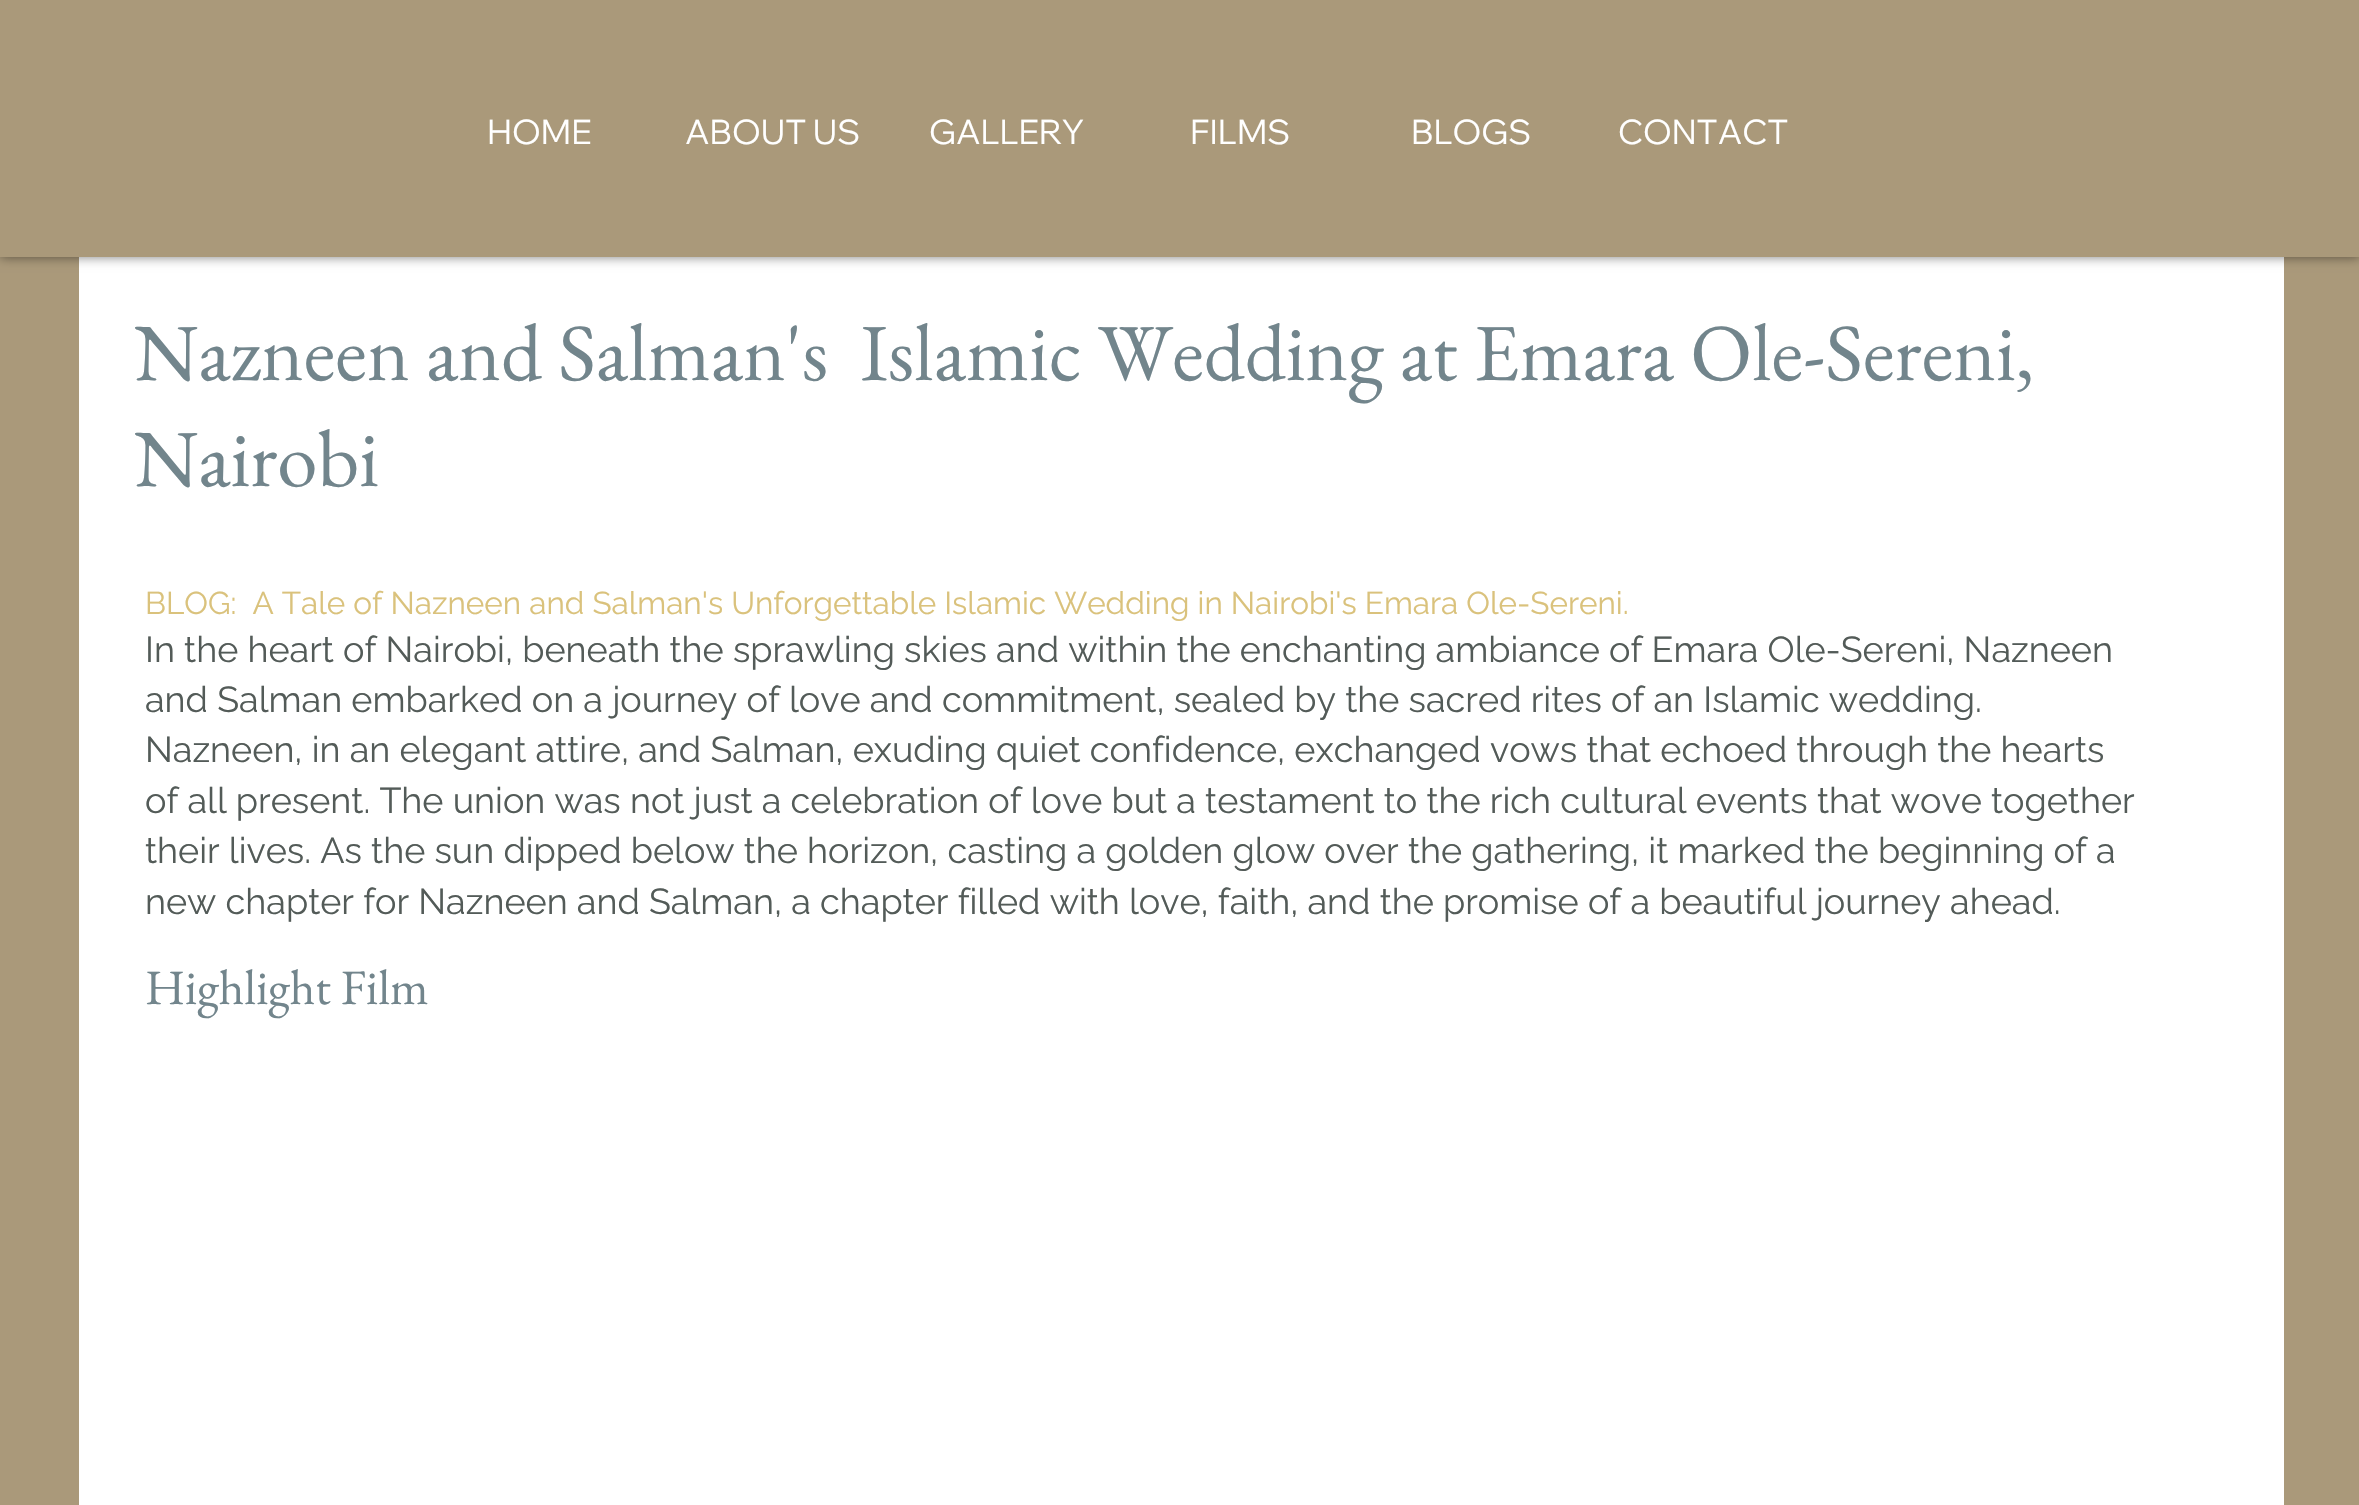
void draw(SkCanvas* canvas) {
    SkPaint paint;
    paint.setAntiAlias(true);
    auto face = [&](const char* family, int weight, float size, bool italic = false) {
        SkFontStyle style(weight, SkFontStyle::kNormal_Width,
            italic ? SkFontStyle::kItalic_Slant : SkFontStyle::kUpright_Slant);
        SkFont result(fontMgr->matchFamilyStyle(family, style), size);
        result.setSubpixel(true);
        return result;
    };
    auto write = [&](const char* s, float x, float y, const SkFont& font, SkColor color) {
        SkPaint ink(SkColor4f::FromColor(color));
        ink.setAntiAlias(true);
        canvas->drawString(s, x, y, font, ink);
    };
    auto block = [&](float x, float y, float w, float h, SkColor color) {
        SkPaint ink(SkColor4f::FromColor(color));
        ink.setAntiAlias(true);
        canvas->drawRect(SkRect::MakeXYWH(x, y, w, h), ink);
    };
    canvas->clear(SkColorSetRGB(170, 153, 122));
    block(79, 257, 2205, 1248, SK_ColorWHITE);
    paint.setColor(SkColorSetARGB(128, 0, 0, 0));
    paint.setMaskFilter(SkMaskFilter::MakeBlur(kNormal_SkBlurStyle, 5.5f));
    canvas->drawRect(SkRect::MakeXYWH(0, 0, 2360, 257), paint);
    paint.setMaskFilter(nullptr);
    block(0, 0, 2359, 257, SkColorSetRGB(170, 153, 122));
    auto kFont1 = face("Wix Madefor Display", 400, 33.75f);
    write("HOME", 487, 144, kFont1, SK_ColorWHITE);
    write("ABOUT US", 685, 144, kFont1, SK_ColorWHITE);
    write("GALLERY", 929, 144, kFont1, SK_ColorWHITE);
    write("FILMS", 1190, 144, kFont1, SK_ColorWHITE);
    write("BLOGS", 1411, 144, kFont1, SK_ColorWHITE);
    write("CONTACT", 1618, 144, kFont1, SK_ColorWHITE);
    auto kFont2 = face("EB Garamond", 400, 81);
    write("Nazneen and Salman's  Islamic Wedding at Emara Ole-Sereni,", 134, 380, kFont2, SkColorSetRGB(114, 133, 140));
    write("Nairobi", 134, 486, kFont2, SkColorSetRGB(114, 133, 140));
    auto kFont3 = face("Raleway", 400, 31.5f);
    write("BLOG:  A Tale of Nazneen and Salman's Unforgettable Islamic Wedding in Nairobi's Emara Ole-Sereni.", 145, 614, kFont3, SkColorSetRGB(218, 194, 124));
    auto kFont4 = face("Raleway", 400, 36);
    write("In the heart of Nairobi, beneath the sprawling skies and within the enchanting ambiance of Emara Ole-Sereni, Nazneen", 145, 662, kFont4, SkColorSetRGB(83, 91, 88));
    write("and Salman embarked on a journey of love and commitment, sealed by the sacred rites of an Islamic wedding.", 145, 712, kFont4, SkColorSetRGB(83, 91, 88));
    write("Nazneen, in an elegant attire, and Salman, exuding quiet confidence, exchanged vows that echoed through the hearts", 145, 762, kFont4, SkColorSetRGB(83, 91, 88));
    write("of all present. The union was not just a celebration of love but a testament to the rich cultural events that wove together", 145, 813, kFont4, SkColorSetRGB(83, 91, 88));
    write("their lives. As the sun dipped below the horizon, casting a golden glow over the gathering, it marked the beginning of a", 145, 863, kFont4, SkColorSetRGB(83, 91, 88));
    write("new chapter for Nazneen and Salman, a chapter filled with love, faith, and the promise of a beautiful journey ahead.", 145, 914, kFont4, SkColorSetRGB(83, 91, 88));
    auto kFont5 = face("EB Garamond", 400, 49.5f);
    write("Highlight Film", 145, 1004, kFont5, SkColorSetRGB(114, 133, 140));
}
